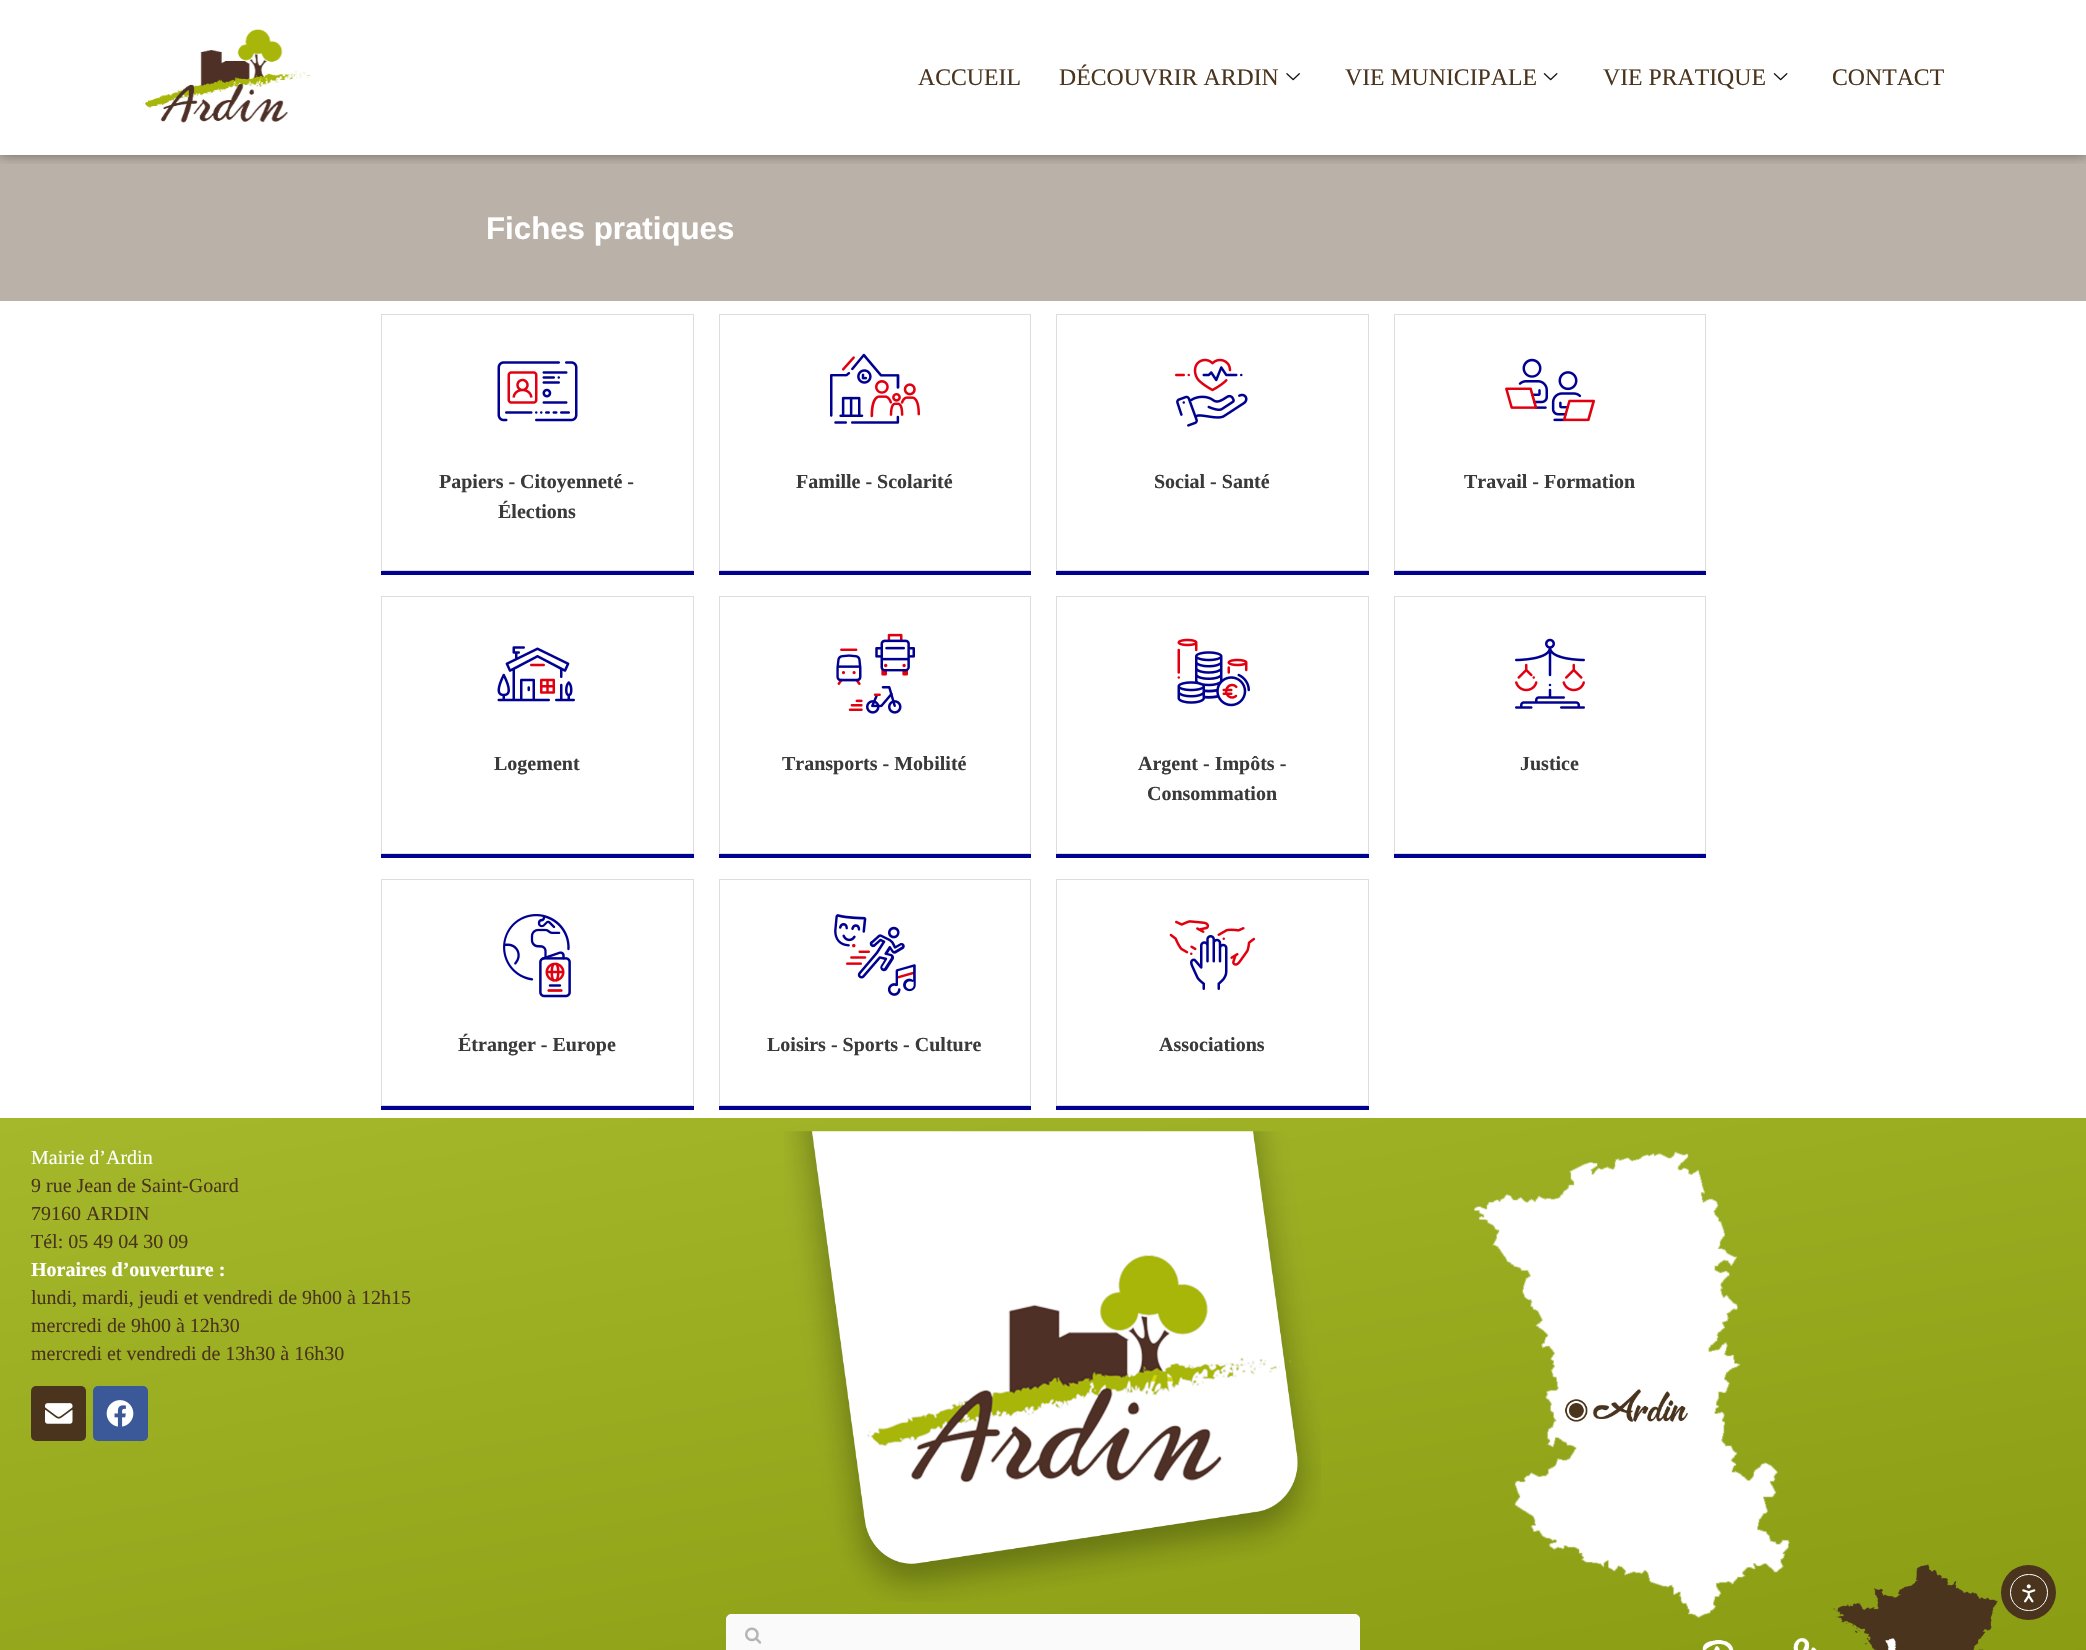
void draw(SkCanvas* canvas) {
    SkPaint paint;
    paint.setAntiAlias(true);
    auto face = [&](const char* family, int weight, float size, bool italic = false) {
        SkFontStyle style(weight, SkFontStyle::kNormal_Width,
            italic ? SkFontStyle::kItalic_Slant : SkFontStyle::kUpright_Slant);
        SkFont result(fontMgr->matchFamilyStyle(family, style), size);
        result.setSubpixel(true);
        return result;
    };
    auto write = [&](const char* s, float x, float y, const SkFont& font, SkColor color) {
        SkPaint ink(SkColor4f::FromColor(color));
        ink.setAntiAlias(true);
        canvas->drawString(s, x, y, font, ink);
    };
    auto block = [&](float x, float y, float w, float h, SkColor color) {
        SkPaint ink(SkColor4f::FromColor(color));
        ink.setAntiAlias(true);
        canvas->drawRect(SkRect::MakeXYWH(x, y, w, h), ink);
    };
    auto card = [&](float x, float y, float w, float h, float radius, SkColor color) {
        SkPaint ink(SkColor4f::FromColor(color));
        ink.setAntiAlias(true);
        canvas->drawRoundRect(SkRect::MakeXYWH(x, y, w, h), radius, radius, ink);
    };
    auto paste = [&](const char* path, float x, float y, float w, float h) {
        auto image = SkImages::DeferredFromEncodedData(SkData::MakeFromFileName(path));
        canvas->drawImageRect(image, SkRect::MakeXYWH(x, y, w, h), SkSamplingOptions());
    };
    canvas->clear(SK_ColorWHITE);
    block(0, 155, 2086, 146, SkColorSetRGB(186, 177, 168));
    canvas->save();
    canvas->clipRect(SkRect::MakeXYWH(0, 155, 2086, 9));
    paint.setColor(SkColorSetARGB(128, 0, 0, 0));
    paint.setMaskFilter(SkMaskFilter::MakeBlur(kNormal_SkBlurStyle, 6));
    canvas->drawRect(SkRect::MakeXYWH(0, -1, 2086, 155), paint);
    paint.setMaskFilter(nullptr);
    canvas->restore();
    paste("pic1.png", 143, 29, 174, 94);
    auto kFont1 = face("Liberation Serif", 400, 23.75f);
    write("ACCUEIL", 918, 85, kFont1, SkColorSetRGB(74, 52, 29));
    write("DÉCOUVRIR ARDIN", 1059, 85, kFont1, SkColorSetRGB(74, 52, 29));
    paste("pic2.png", 1286, 73, 14, 8);
    write("VIE MUNICIPALE", 1345, 85, kFont1, SkColorSetRGB(74, 52, 29));
    paste("pic3.png", 1543, 73, 15, 8);
    write("VIE PRATIQUE", 1603, 85, kFont1, SkColorSetRGB(74, 52, 29));
    paste("pic3.png", 1773, 73, 15, 8);
    write("CONTACT", 1832, 85, kFont1, SkColorSetRGB(74, 52, 29));
    auto kFont2 = face("Liberation Sans", 700, 31.25f);
    write("Fiches pratiques", 486, 239, kFont2, SK_ColorWHITE);
    paint.setColor(SkColorSetRGB(0, 0, 145));
    canvas->drawPath(SkPathBuilder().moveTo(381, 318).lineTo(381, 575).lineTo(694, 575).lineTo(694, 318).lineTo(694, 571).lineTo(381, 571).close().detach(), paint);
    paint.setStyle(SkPaint::kStroke_Style);
    paint.setStrokeWidth(1);
    paint.setColor(SkColorSetRGB(221, 221, 221));
    canvas->drawRect(SkRect::MakeXYWH(381.5f, 314.5f, 312, 256), paint);
    paste("pic4.png", 497, 361, 81, 61);
    auto kFont3 = face("Liberation Serif", 700, 20);
    write("Papiers - Citoyenneté -", 439, 488, kFont3, SkColorSetRGB(58, 58, 58));
    write("Élections", 498, 518, kFont3, SkColorSetRGB(58, 58, 58));
    block(719, 571, 312, 4, SkColorSetRGB(0, 0, 145));
    canvas->drawRect(SkRect::MakeXYWH(719.5f, 314.5f, 311, 256), paint);
    paste("pic5.png", 830, 353, 90, 71);
    write("Famille - Scolarité", 796, 488, kFont3, SkColorSetRGB(58, 58, 58));
    paint.setStyle(SkPaint::kFill_Style);
    paint.setColor(SkColorSetRGB(0, 0, 145));
    canvas->drawPath(SkPathBuilder().moveTo(1056, 318).lineTo(1056, 575).lineTo(1369, 575).lineTo(1369, 318).lineTo(1369, 571).lineTo(1056, 571).close().detach(), paint);
    paint.setStyle(SkPaint::kStroke_Style);
    paint.setColor(SkColorSetRGB(221, 221, 221));
    canvas->drawRect(SkRect::MakeXYWH(1056.5f, 314.5f, 312, 256), paint);
    paste("pic6.png", 1175, 358, 73, 69);
    write("Social - Santé", 1154, 488, kFont3, SkColorSetRGB(58, 58, 58));
    block(1394, 571, 312, 4, SkColorSetRGB(0, 0, 145));
    canvas->drawRect(SkRect::MakeXYWH(1394.5f, 314.5f, 311, 256), paint);
    paste("pic7.png", 1505, 358, 90, 64);
    write("Travail - Formation", 1464, 488, kFont3, SkColorSetRGB(58, 58, 58));
    paint.setStyle(SkPaint::kFill_Style);
    paint.setColor(SkColorSetRGB(0, 0, 145));
    canvas->drawPath(SkPathBuilder().moveTo(381, 600).lineTo(381, 858).lineTo(694, 858).lineTo(694, 600).lineTo(694, 854).lineTo(381, 854).close().detach(), paint);
    paint.setStyle(SkPaint::kStroke_Style);
    paint.setColor(SkColorSetRGB(221, 221, 221));
    canvas->drawRect(SkRect::MakeXYWH(381.5f, 596.5f, 312, 257), paint);
    paste("pic8.png", 497, 646, 78, 56);
    write("Logement", 494, 770, kFont3, SkColorSetRGB(58, 58, 58));
    block(719, 854, 312, 4, SkColorSetRGB(0, 0, 145));
    canvas->drawRect(SkRect::MakeXYWH(719.5f, 596.5f, 311, 257), paint);
    paste("pic9.png", 836, 633, 79, 81);
    write("Transports - Mobilité", 782, 770, kFont3, SkColorSetRGB(58, 58, 58));
    paint.setStyle(SkPaint::kFill_Style);
    paint.setColor(SkColorSetRGB(0, 0, 145));
    canvas->drawPath(SkPathBuilder().moveTo(1056, 600).lineTo(1056, 858).lineTo(1369, 858).lineTo(1369, 600).lineTo(1369, 854).lineTo(1056, 854).close().detach(), paint);
    paint.setStyle(SkPaint::kStroke_Style);
    paint.setColor(SkColorSetRGB(221, 221, 221));
    canvas->drawRect(SkRect::MakeXYWH(1056.5f, 596.5f, 312, 257), paint);
    paste("pic10.png", 1177, 638, 73, 69);
    write("Argent - Impôts -", 1138, 770, kFont3, SkColorSetRGB(58, 58, 58));
    write("Consommation", 1147, 800, kFont3, SkColorSetRGB(58, 58, 58));
    block(1394, 854, 312, 4, SkColorSetRGB(0, 0, 145));
    canvas->drawRect(SkRect::MakeXYWH(1394.5f, 596.5f, 311, 257), paint);
    paste("pic11.png", 1515, 638, 70, 71);
    write("Justice", 1520, 770, kFont3, SkColorSetRGB(58, 58, 58));
    paint.setStyle(SkPaint::kFill_Style);
    paint.setColor(SkColorSetRGB(0, 0, 145));
    canvas->drawPath(SkPathBuilder().moveTo(381, 883).lineTo(381, 1110).lineTo(694, 1110).lineTo(694, 883).lineTo(694, 1106).lineTo(381, 1106).close().detach(), paint);
    paint.setStyle(SkPaint::kStroke_Style);
    paint.setColor(SkColorSetRGB(221, 221, 221));
    canvas->drawRect(SkRect::MakeXYWH(381.5f, 879.5f, 312, 226), paint);
    paste("pic12.png", 503, 914, 68, 84);
    write("Étranger - Europe", 458, 1051, kFont3, SkColorSetRGB(58, 58, 58));
    block(719, 1106, 312, 4, SkColorSetRGB(0, 0, 145));
    canvas->drawRect(SkRect::MakeXYWH(719.5f, 879.5f, 311, 226), paint);
    paste("pic13.png", 834, 914, 82, 82);
    write("Loisirs - Sports - Culture", 767, 1051, kFont3, SkColorSetRGB(58, 58, 58));
    paint.setStyle(SkPaint::kFill_Style);
    paint.setColor(SkColorSetRGB(0, 0, 145));
    canvas->drawPath(SkPathBuilder().moveTo(1056, 883).lineTo(1056, 1110).lineTo(1369, 1110).lineTo(1369, 883).lineTo(1369, 1106).lineTo(1056, 1106).close().detach(), paint);
    paint.setStyle(SkPaint::kStroke_Style);
    paint.setColor(SkColorSetRGB(221, 221, 221));
    canvas->drawRect(SkRect::MakeXYWH(1056.5f, 879.5f, 312, 226), paint);
    paste("pic14.png", 1169, 920, 87, 70);
    write("Associations", 1159, 1051, kFont3, SkColorSetRGB(58, 58, 58));
    paint.setStyle(SkPaint::kFill_Style);
    {
        const SkColor colors[] = {SkColorSetRGB(165, 184, 43), SkColorSetRGB(134, 153, 15)};
        const float stops[] = {0, 1};
        const SkPoint ends[] = {{955, 949}, {1131, 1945}};
        paint.setShader(SkGradientShader::MakeLinear(ends, colors, stops, 2, SkTileMode::kClamp));
        paint.setAlpha(255);
    }
    canvas->drawRect(SkRect::MakeXYWH(0, 1118, 2086, 532), paint);
    auto kFont4 = face("Liberation Serif", 400, 20);
    write("Mairie d’Ardin", 31, 1164, kFont4, SK_ColorWHITE);
    write("9 rue Jean de Saint-Goard", 31, 1192, kFont4, SkColorSetRGB(74, 52, 29));
    write("79160 ARDIN", 31, 1220, kFont4, SkColorSetRGB(74, 52, 29));
    write("Tél: 05 49 04 30 09", 31, 1248, kFont4, SkColorSetRGB(74, 52, 29));
    write("Horaires d’ouverture :", 31, 1276, kFont3, SK_ColorWHITE);
    write("lundi, mardi, jeudi et vendredi de 9h00 à 12h15", 31, 1304, kFont4, SkColorSetRGB(74, 52, 29));
    write("mercredi de 9h00 à 12h30", 31, 1332, kFont4, SkColorSetRGB(74, 52, 29));
    write("mercredi et vendredi de 13h30 à 16h30", 31, 1360, kFont4, SkColorSetRGB(74, 52, 29));
    card(31, 1386, 55, 55, 5, SkColorSetRGB(74, 52, 29));
    paste("pic15.png", 45, 1403, 28, 21);
    card(93, 1386, 55, 55, 5, SkColorSetRGB(59, 89, 152));
    paste("pic16.png", 106, 1400, 28, 27);
    paste("pic17.png", 784, 1131, 537, 471);
    paint.setShader(nullptr);
    paint.setColor(SkColorSetRGB(250, 250, 250));
    canvas->drawRoundRect(SkRect::MakeXYWH(726.5f, 1614.5f, 633, 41), 4.5f, 4.5f, paint);
    paint.setStyle(SkPaint::kStroke_Style);
    canvas->drawRoundRect(SkRect::MakeXYWH(726.5f, 1614.5f, 633, 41), 4.5f, 4.5f, paint);
    paste("pic18.png", 745, 1627, 17, 17);
    paste("pic19.png", 1473, 1151, 525, 499);
    paint.setStyle(SkPaint::kFill_Style);
    paint.setColor(SkColorSetRGB(74, 52, 29));
    canvas->drawCircle(2028.5f, 1592.5f, 27.5f, paint);
    paint.setStyle(SkPaint::kStroke_Style);
    paint.setColor(SK_ColorWHITE);
    canvas->drawRoundRect(SkRect::MakeXYWH(2010.5f, 1574.5f, 37, 36), 18, 18, paint);
    paste("pic20.png", 2022, 1584, 14, 19);
}
